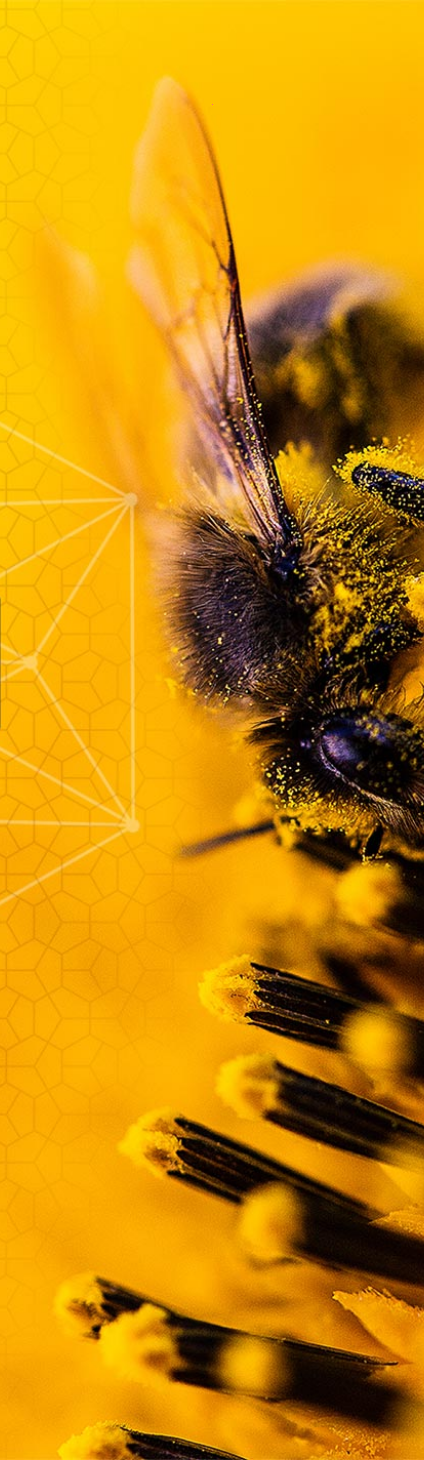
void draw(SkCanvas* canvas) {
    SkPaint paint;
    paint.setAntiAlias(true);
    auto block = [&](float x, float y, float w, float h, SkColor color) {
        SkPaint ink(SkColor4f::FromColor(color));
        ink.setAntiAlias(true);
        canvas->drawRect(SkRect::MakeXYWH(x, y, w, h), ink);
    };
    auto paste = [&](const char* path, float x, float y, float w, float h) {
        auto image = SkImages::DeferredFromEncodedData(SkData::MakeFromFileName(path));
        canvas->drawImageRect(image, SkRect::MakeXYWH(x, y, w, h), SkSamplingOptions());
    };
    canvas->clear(SK_ColorWHITE);
    paste("pic1.png", 0, 0, 424, 1460);
    block(212, 104, 1, 1, SkColorSetRGB(255, 97, 128));
}
